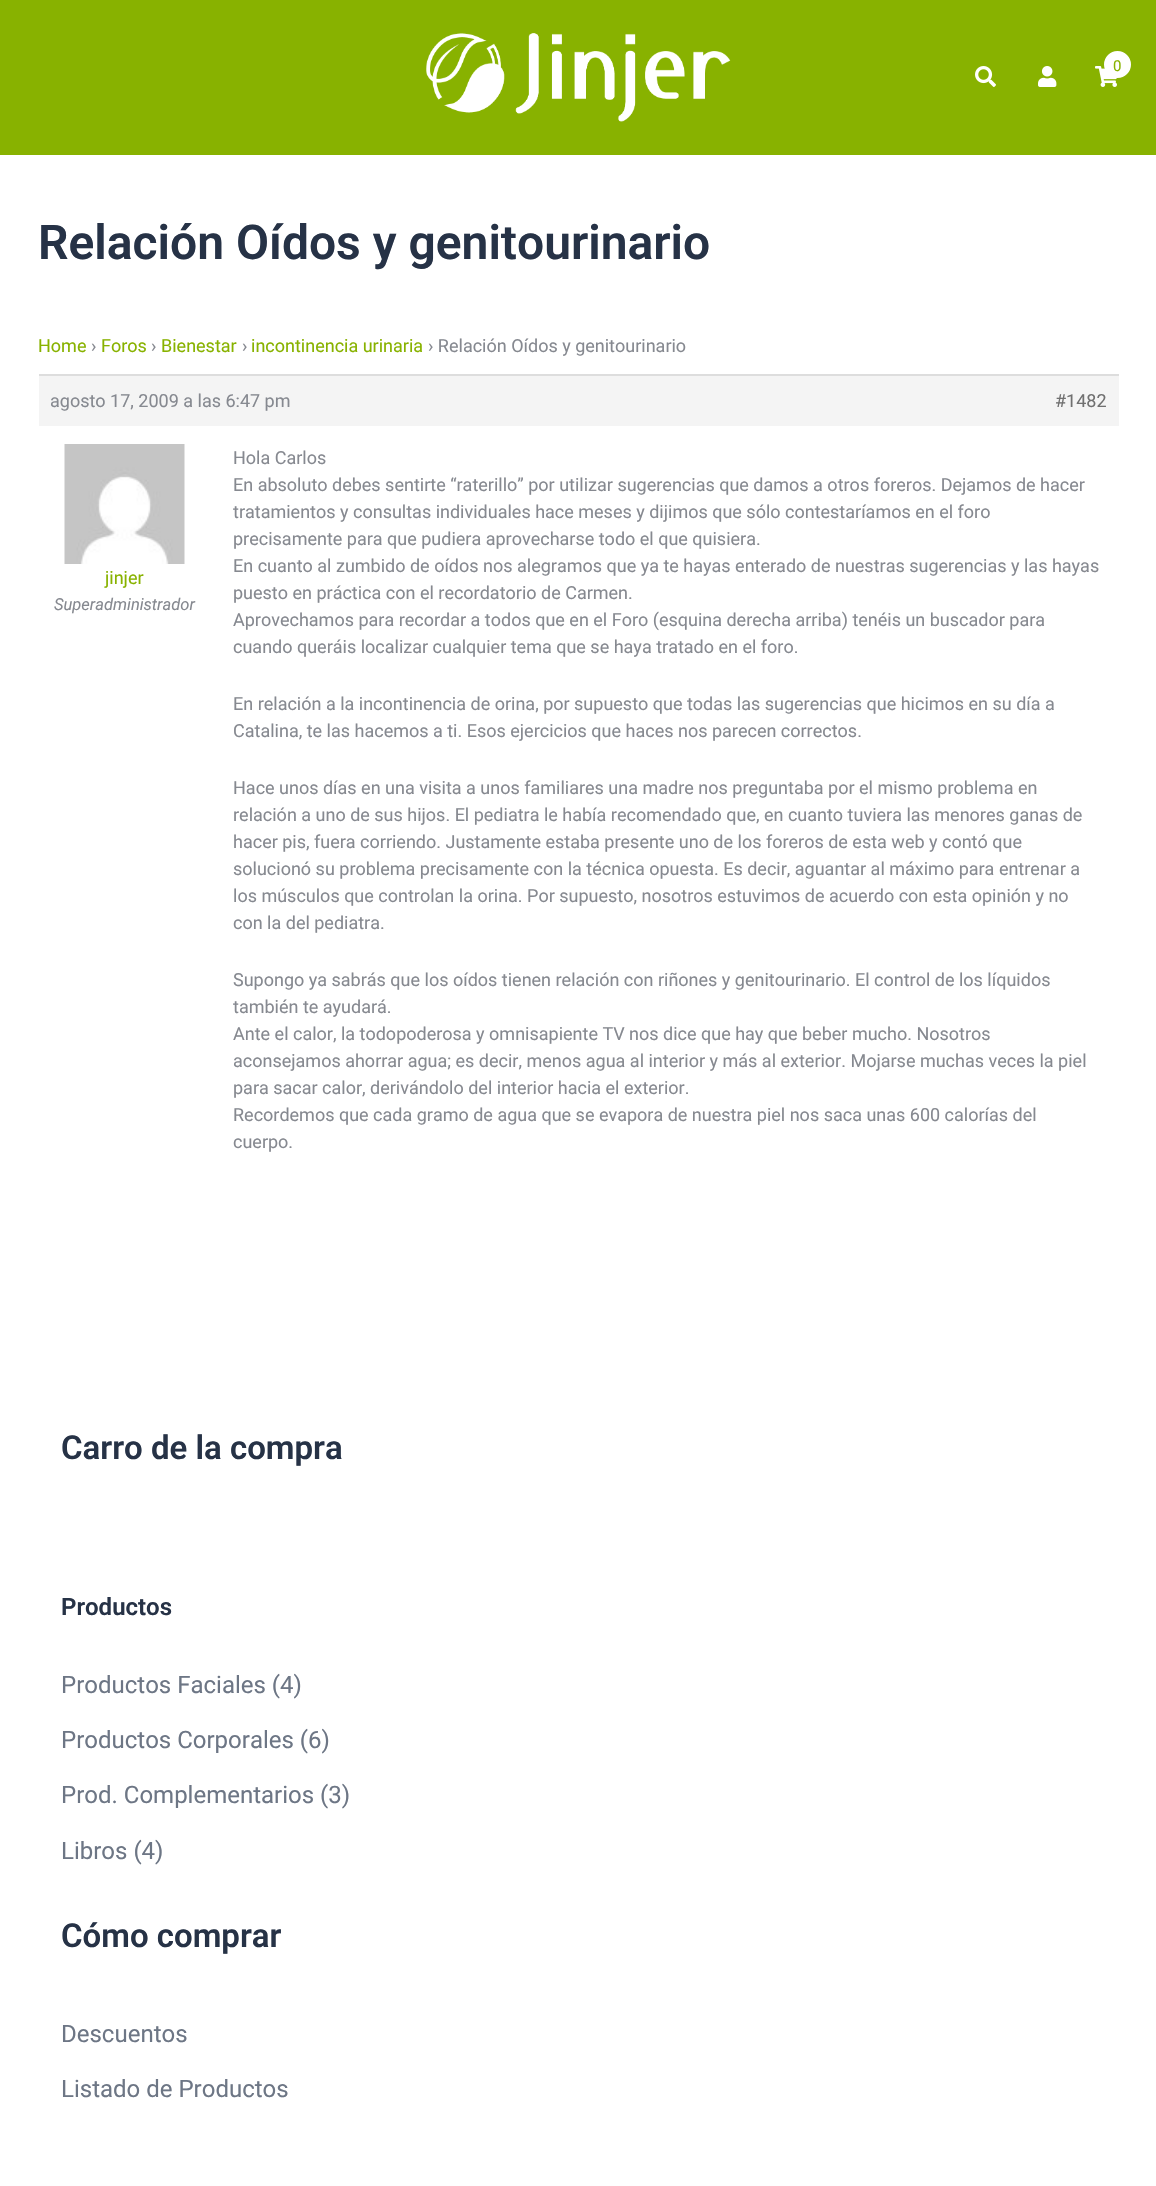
void draw(SkCanvas* canvas) {
    SkPaint paint;
    paint.setAntiAlias(true);
    auto face = [&](const char* family, int weight, float size, bool italic = false) {
        SkFontStyle style(weight, SkFontStyle::kNormal_Width,
            italic ? SkFontStyle::kItalic_Slant : SkFontStyle::kUpright_Slant);
        SkFont result(fontMgr->matchFamilyStyle(family, style), size);
        result.setSubpixel(true);
        return result;
    };
    auto write = [&](const char* s, float x, float y, const SkFont& font, SkColor color) {
        SkPaint ink(SkColor4f::FromColor(color));
        ink.setAntiAlias(true);
        canvas->drawString(s, x, y, font, ink);
    };
    auto block = [&](float x, float y, float w, float h, SkColor color) {
        SkPaint ink(SkColor4f::FromColor(color));
        ink.setAntiAlias(true);
        canvas->drawRect(SkRect::MakeXYWH(x, y, w, h), ink);
    };
    auto paste = [&](const char* path, float x, float y, float w, float h) {
        auto image = SkImages::DeferredFromEncodedData(SkData::MakeFromFileName(path));
        canvas->drawImageRect(image, SkRect::MakeXYWH(x, y, w, h), SkSamplingOptions());
    };
    canvas->clear(SK_ColorWHITE);
    block(0, 0, 1156, 155, SkColorSetRGB(136, 178, 0));
    paste("pic1.png", 426, 33, 305, 89);
    paste("pic2.png", 975, 66, 21, 21);
    paste("pic3.png", 1038, 66, 19, 21);
    paste("pic4.png", 1095, 66, 22, 21);
    paint.setColor(SK_ColorWHITE);
    canvas->drawCircle(1117.5f, 64.5f, 12.5f, paint);
    paint.setStyle(SkPaint::kStroke_Style);
    paint.setStrokeWidth(2);
    canvas->drawCircle(1117.5f, 64.5f, 12.5f, paint);
    auto kFont1 = face("Roboto", 400, 15);
    write("0", 1113, 71, kFont1, SkColorSetRGB(136, 178, 0));
    auto kFont2 = face("Roboto", 600, 48);
    write("Relación Oídos y genitourinario", 38, 259, kFont2, SkColorSetRGB(38, 50, 70));
    auto kFont3 = face("Roboto", 400, 18);
    write("Home", 38, 352, kFont3, SkColorSetRGB(136, 178, 0));
    write("›", 91, 352, kFont3, SkColorSetRGB(134, 137, 144));
    write("Foros", 101, 352, kFont3, SkColorSetRGB(136, 178, 0));
    write("›", 151, 352, kFont3, SkColorSetRGB(134, 137, 144));
    write("Bienestar", 161, 352, kFont3, SkColorSetRGB(136, 178, 0));
    write("›", 242, 352, kFont3, SkColorSetRGB(134, 137, 144));
    write("incontinencia urinaria", 251, 352, kFont3, SkColorSetRGB(136, 178, 0));
    write("› Relación Oídos y genitourinario", 428, 352, kFont3, SkColorSetRGB(134, 137, 144));
    block(39, 376, 1080, 50, SkColorSetRGB(244, 244, 244));
    block(39, 374, 1080, 2, SkColorSetRGB(221, 221, 221));
    write("agosto 17, 2009 a las 6:47 pm", 50, 407, kFont3, SkColorSetRGB(134, 137, 144));
    write("#1482", 1055, 407, kFont3, SkColorSetRGB(112, 112, 112));
    paste("pic5.png", 64, 444, 121, 120);
    write("jinjer", 105, 584, kFont3, SkColorSetRGB(136, 178, 0));
    auto kFont4 = face("Roboto", 400, 16.5f, true);
    write("Superadministrador", 54, 610, kFont4, SkColorSetRGB(134, 137, 144));
    write("Hola Carlos", 233, 464, kFont3, SkColorSetRGB(134, 137, 144));
    write("En absoluto debes sentirte “raterillo” por utilizar sugerencias que damos a otros foreros. Dejamos de hacer", 233, 491, kFont3, SkColorSetRGB(134, 137, 144));
    write("tratamientos y consultas individuales hace meses y dijimos que sólo contestaríamos en el foro", 233, 518, kFont3, SkColorSetRGB(134, 137, 144));
    write("precisamente para que pudiera aprovecharse todo el que quisiera.", 233, 545, kFont3, SkColorSetRGB(134, 137, 144));
    write("En cuanto al zumbido de oídos nos alegramos que ya te hayas enterado de nuestras sugerencias y las hayas", 233, 572, kFont3, SkColorSetRGB(134, 137, 144));
    write("puesto en práctica con el recordatorio de Carmen.", 233, 599, kFont3, SkColorSetRGB(134, 137, 144));
    write("Aprovechamos para recordar a todos que en el Foro (esquina derecha arriba) tenéis un buscador para", 233, 626, kFont3, SkColorSetRGB(134, 137, 144));
    write("cuando queráis localizar cualquier tema que se haya tratado en el foro.", 233, 653, kFont3, SkColorSetRGB(134, 137, 144));
    write("En relación a la incontinencia de orina, por supuesto que todas las sugerencias que hicimos en su día a", 233, 710, kFont3, SkColorSetRGB(134, 137, 144));
    write("Catalina, te las hacemos a ti. Esos ejercicios que haces nos parecen correctos.", 233, 737, kFont3, SkColorSetRGB(134, 137, 144));
    write("Hace unos días en una visita a unos familiares una madre nos preguntaba por el mismo problema en", 233, 794, kFont3, SkColorSetRGB(134, 137, 144));
    write("relación a uno de sus hijos. El pediatra le había recomendado que, en cuanto tuviera las menores ganas de", 233, 821, kFont3, SkColorSetRGB(134, 137, 144));
    write("hacer pis, fuera corriendo. Justamente estaba presente uno de los foreros de esta web y contó que", 233, 848, kFont3, SkColorSetRGB(134, 137, 144));
    write("solucionó su problema precisamente con la técnica opuesta. Es decir, aguantar al máximo para entrenar a", 233, 875, kFont3, SkColorSetRGB(134, 137, 144));
    write("los músculos que controlan la orina. Por supuesto, nosotros estuvimos de acuerdo con esta opinión y no", 233, 902, kFont3, SkColorSetRGB(134, 137, 144));
    write("con la del pediatra.", 233, 929, kFont3, SkColorSetRGB(134, 137, 144));
    write("Supongo ya sabrás que los oídos tienen relación con riñones y genitourinario. El control de los líquidos", 233, 986, kFont3, SkColorSetRGB(134, 137, 144));
    write("también te ayudará.", 233, 1013, kFont3, SkColorSetRGB(134, 137, 144));
    write("Ante el calor, la todopoderosa y omnisapiente TV nos dice que hay que beber mucho. Nosotros", 233, 1040, kFont3, SkColorSetRGB(134, 137, 144));
    write("aconsejamos ahorrar agua; es decir, menos agua al interior y más al exterior. Mojarse muchas veces la piel", 233, 1067, kFont3, SkColorSetRGB(134, 137, 144));
    write("para sacar calor, derivándolo del interior hacia el exterior.", 233, 1094, kFont3, SkColorSetRGB(134, 137, 144));
    write("Recordemos que cada gramo de agua que se evapora de nuestra piel nos saca unas 600 calorías del", 233, 1121, kFont3, SkColorSetRGB(134, 137, 144));
    write("cuerpo.", 233, 1148, kFont3, SkColorSetRGB(134, 137, 144));
    auto kFont5 = face("Roboto", 600, 33);
    write("Carro de la compra", 61, 1459, kFont5, SkColorSetRGB(38, 50, 70));
    auto kFont6 = face("Roboto", 600, 24);
    write("Productos", 61, 1615, kFont6, SkColorSetRGB(38, 50, 70));
    auto kFont7 = face("Roboto", 400, 24);
    write("Productos Faciales (4)", 61, 1693, kFont7, SkColorSetRGB(109, 118, 133));
    write("Productos Corporales (6)", 61, 1748, kFont7, SkColorSetRGB(109, 118, 133));
    write("Prod. Complementarios (3)", 61, 1803, kFont7, SkColorSetRGB(109, 118, 133));
    write("Libros (4)", 61, 1859, kFont7, SkColorSetRGB(109, 118, 133));
    write("Cómo comprar", 61, 1947, kFont5, SkColorSetRGB(38, 50, 70));
    write("Descuentos", 61, 2042, kFont7, SkColorSetRGB(109, 118, 133));
    write("Listado de Productos", 61, 2097, kFont7, SkColorSetRGB(109, 118, 133));
}
